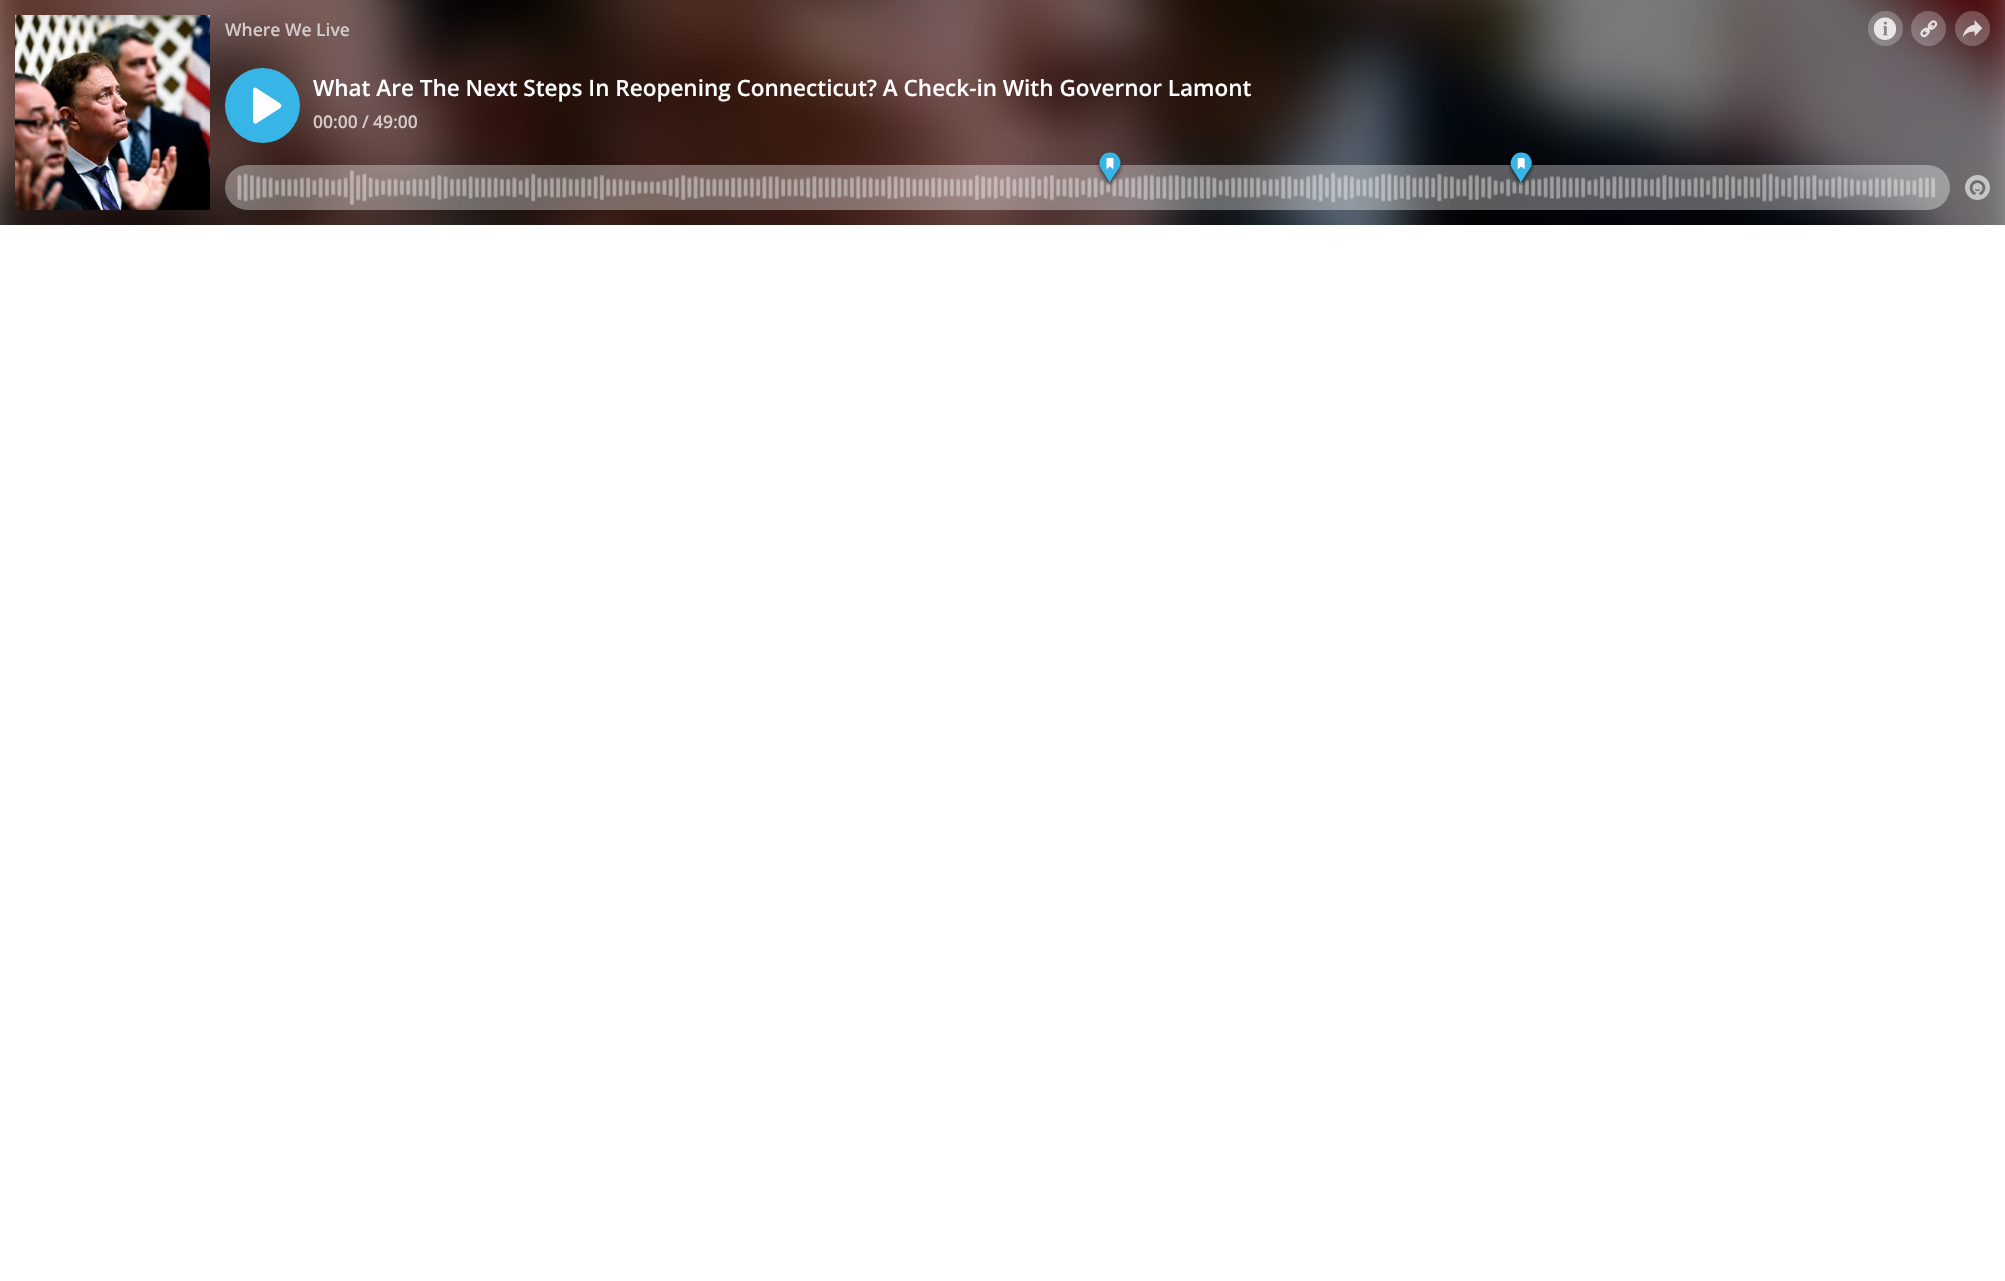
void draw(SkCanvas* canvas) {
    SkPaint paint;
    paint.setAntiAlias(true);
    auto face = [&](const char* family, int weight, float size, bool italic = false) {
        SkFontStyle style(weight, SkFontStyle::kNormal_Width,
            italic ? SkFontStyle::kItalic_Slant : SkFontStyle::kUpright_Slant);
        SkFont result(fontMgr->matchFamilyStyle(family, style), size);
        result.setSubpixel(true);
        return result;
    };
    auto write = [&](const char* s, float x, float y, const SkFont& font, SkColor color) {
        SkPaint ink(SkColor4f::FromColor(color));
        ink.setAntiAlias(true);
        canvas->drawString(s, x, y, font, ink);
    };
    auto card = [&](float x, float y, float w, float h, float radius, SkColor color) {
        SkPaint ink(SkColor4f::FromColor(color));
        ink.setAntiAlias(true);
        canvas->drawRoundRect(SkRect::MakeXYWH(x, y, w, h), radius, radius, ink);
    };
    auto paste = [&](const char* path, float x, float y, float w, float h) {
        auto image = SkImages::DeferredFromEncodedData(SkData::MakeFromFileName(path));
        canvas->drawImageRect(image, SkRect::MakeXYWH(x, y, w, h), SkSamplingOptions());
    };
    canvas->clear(SK_ColorWHITE);
    paste("pic1.png", 0, 0, 2005, 225);
    paste("pic2.png", 15, 15, 195, 195);
    auto kFont1 = face("Open Sans", 600, 17.5f);
    write("Where We Live", 225, 36, kFont1, SkColorSetRGB(212, 203, 202));
    paint.setColor(SkColorSetARGB(61, 255, 255, 255));
    canvas->drawCircle(1885.5f, 28.5f, 17.5f, paint);
    paste("pic3.png", 1874, 17, 22, 23);
    canvas->drawCircle(1928.5f, 28.5f, 17.5f, paint);
    paste("pic4.png", 1920, 20, 18, 18);
    canvas->drawCircle(1972.5f, 28.5f, 17.5f, paint);
    paste("pic5.png", 1962, 20, 21, 18);
    paint.setColor(SkColorSetRGB(55, 181, 230));
    canvas->drawCircle(262.5f, 105.5f, 37.5f, paint);
    paint.setColor(SK_ColorWHITE);
    canvas->drawPath(SkPathBuilder().moveTo(257, 123).cubicTo(255, 124.5f, 253, 123.5f, 253, 120.5f).lineTo(253, 91).cubicTo(253, 88, 255, 86.5f, 257, 88.5f).lineTo(279.5f, 103).cubicTo(282, 104.5f, 282, 107, 279.5f, 108.5f).close().detach(), paint);
    auto kFont2 = face("Open Sans", 600, 22.5f);
    write("What Are The Next Steps In Reopening Connecticut? A Check-in With Governor Lamont", 313, 96, kFont2, SK_ColorWHITE);
    write("00:00", 313, 128, kFont1, SkColorSetRGB(212, 203, 202));
    write("/", 362, 128, kFont1, SkColorSetRGB(212, 203, 202));
    write("49:00", 373, 128, kFont1, SkColorSetRGB(212, 203, 202));
    card(225, 165, 1725, 45, 22.5f, SkColorSetARGB(89, 255, 255, 255));
    paste("pic8.png", 237, 170, 1274, 35);
    paste("pic6.png", 1096, 152, 28, 33);
    paste("pic9.png", 1512, 173, 424, 29);
    paste("pic7.png", 1508, 152, 27, 33);
    paste("pic10.png", 1965, 175, 25, 25);
}
